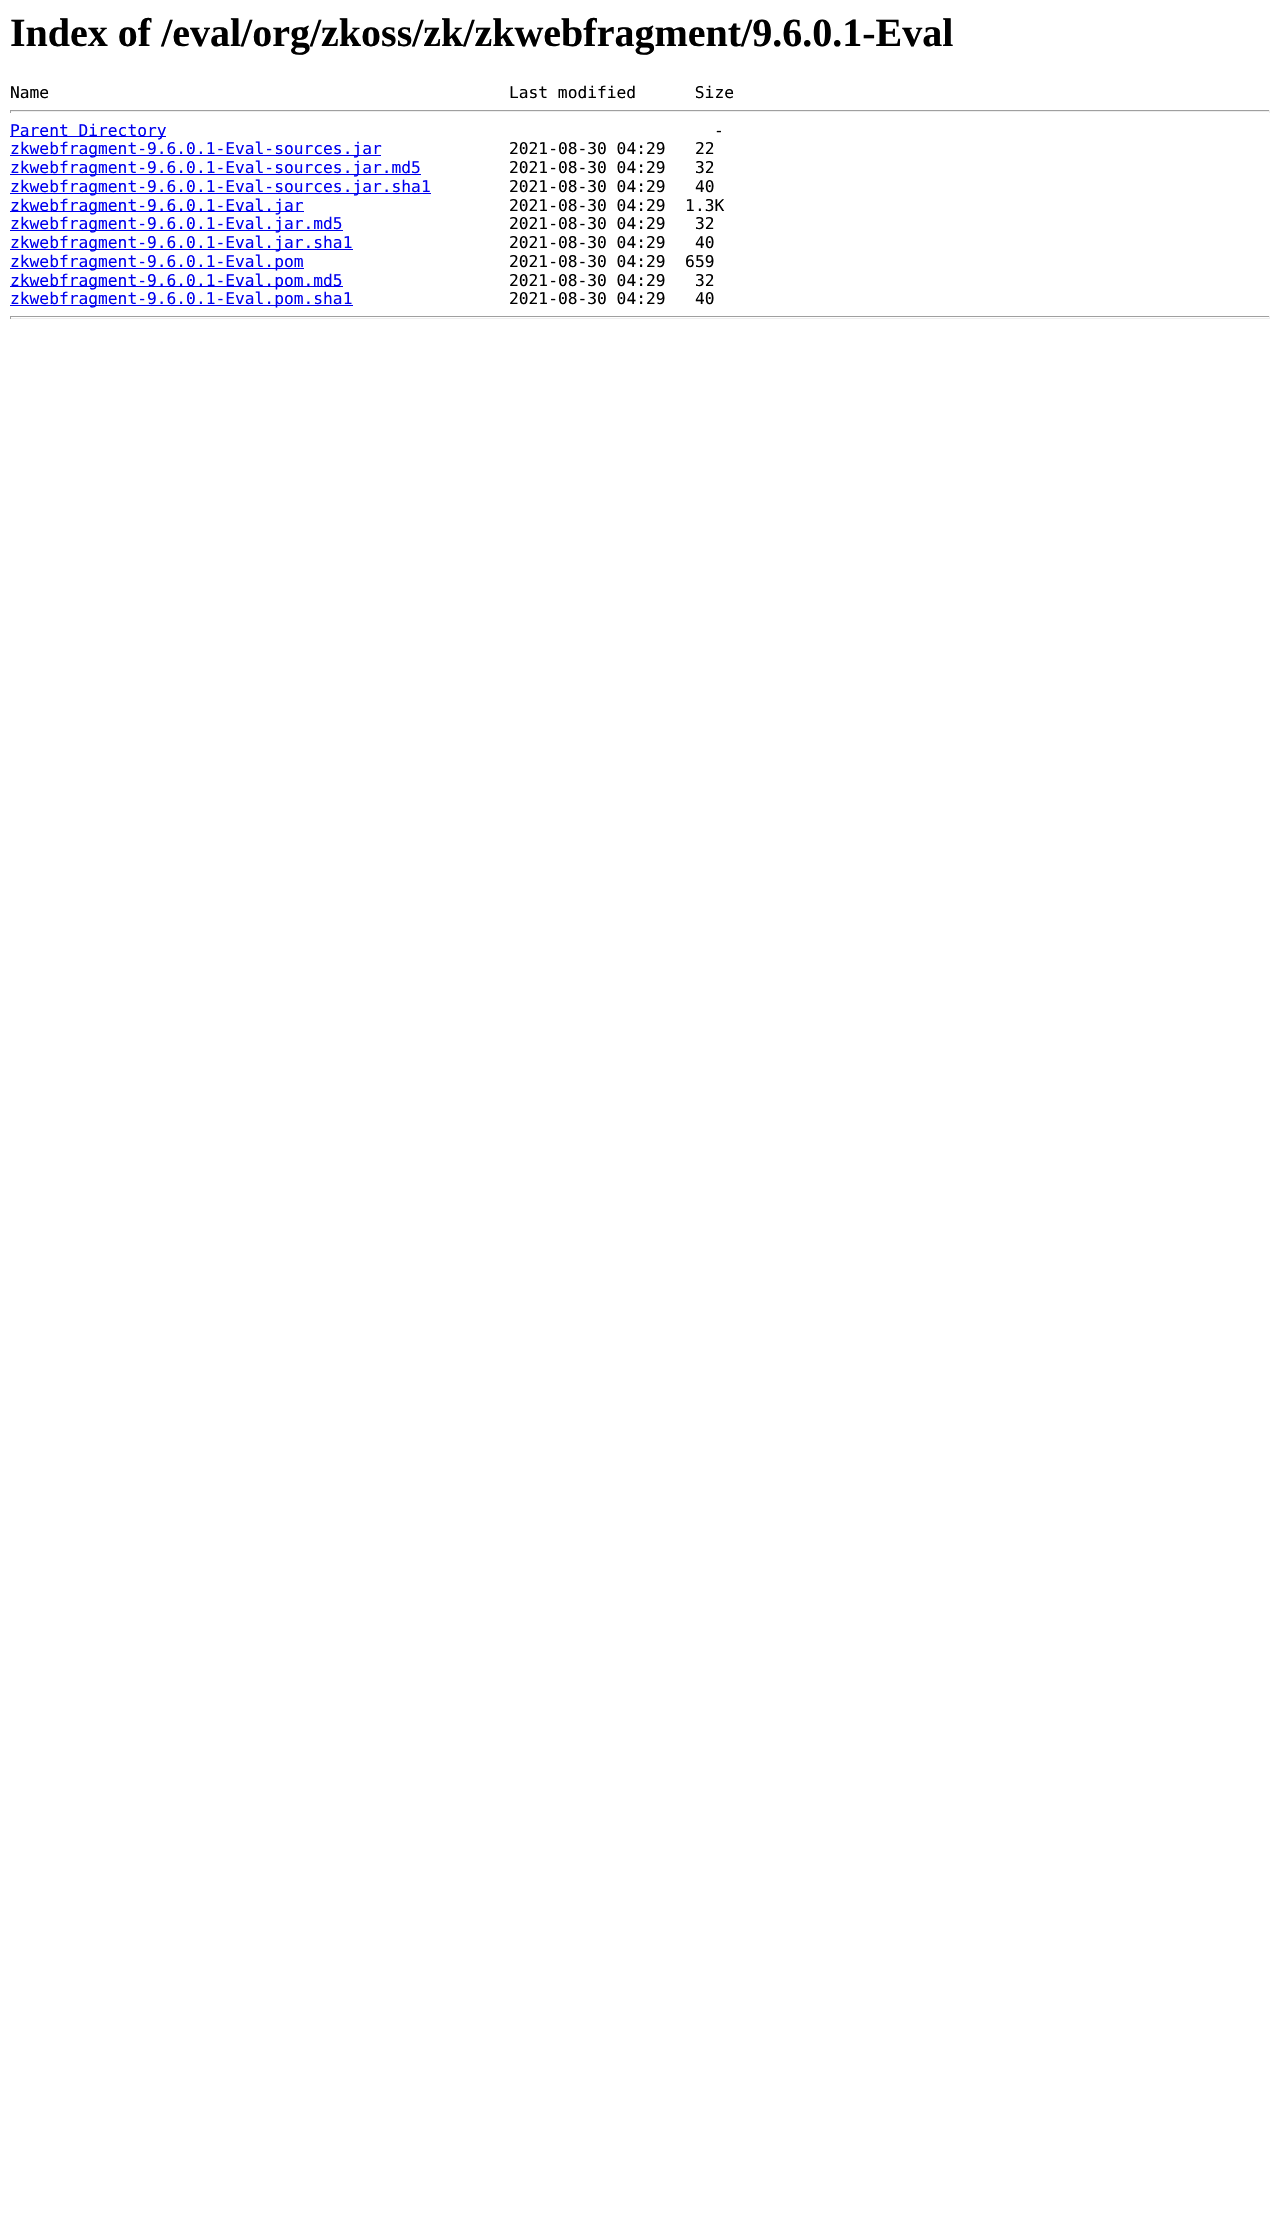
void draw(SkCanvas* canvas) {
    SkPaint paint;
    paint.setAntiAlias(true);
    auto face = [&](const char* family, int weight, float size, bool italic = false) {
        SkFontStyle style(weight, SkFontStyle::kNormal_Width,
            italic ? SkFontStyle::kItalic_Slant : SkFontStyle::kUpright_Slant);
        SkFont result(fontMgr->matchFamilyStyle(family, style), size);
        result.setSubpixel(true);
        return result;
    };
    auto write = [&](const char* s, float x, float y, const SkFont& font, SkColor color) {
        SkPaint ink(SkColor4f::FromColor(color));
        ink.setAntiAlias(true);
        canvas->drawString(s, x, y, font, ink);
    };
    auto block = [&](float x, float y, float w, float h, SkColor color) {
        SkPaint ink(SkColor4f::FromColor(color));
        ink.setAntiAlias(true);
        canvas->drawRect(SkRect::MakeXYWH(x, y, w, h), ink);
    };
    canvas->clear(SK_ColorWHITE);
    auto kFont1 = face("Liberation Serif", 700, 40);
    write("Index of /eval/org/zkoss/zk/zkwebfragment/9.6.0.1-Eval", 10, 46, kFont1, SK_ColorBLACK);
    auto kFont2 = face("DejaVu Sans Mono", 400, 16.25f);
    write("Name                                               Last modified      Size", 10, 98, kFont2, SK_ColorBLACK);
    block(10, 110, 1260, 1, SkColorSetRGB(159, 159, 159));
    block(1269, 110, 1, 3, SkColorSetRGB(238, 238, 238));
    block(10, 111, 1260, 1, SkColorSetRGB(238, 238, 238));
    block(10, 110, 1, 3, SkColorSetRGB(159, 159, 159));
    block(10, 136, 156, 1, SkColorSetRGB(0, 0, 238));
    write("Parent Directory", 10, 136, kFont2, SkColorSetRGB(0, 0, 238));
    write("-", 714, 136, kFont2, SK_ColorBLACK);
    block(10, 155, 371, 1, SkColorSetRGB(0, 0, 238));
    write("zkwebfragment-9.6.0.1-Eval-sources.jar", 10, 154, kFont2, SkColorSetRGB(0, 0, 238));
    write("2021-08-30 04:29   22", 509, 154, kFont2, SK_ColorBLACK);
    block(10, 174, 411, 1, SkColorSetRGB(0, 0, 238));
    write("zkwebfragment-9.6.0.1-Eval-sources.jar.md5", 10, 173, kFont2, SkColorSetRGB(0, 0, 238));
    write("2021-08-30 04:29   32", 509, 173, kFont2, SK_ColorBLACK);
    block(10, 193, 421, 1, SkColorSetRGB(0, 0, 238));
    write("zkwebfragment-9.6.0.1-Eval-sources.jar.sha1", 10, 192, kFont2, SkColorSetRGB(0, 0, 238));
    write("2021-08-30 04:29   40", 509, 192, kFont2, SK_ColorBLACK);
    block(10, 211, 294, 1, SkColorSetRGB(0, 0, 238));
    write("zkwebfragment-9.6.0.1-Eval.jar", 10, 211, kFont2, SkColorSetRGB(0, 0, 238));
    write("2021-08-30 04:29  1.3K", 509, 211, kFont2, SK_ColorBLACK);
    block(10, 230, 333, 1, SkColorSetRGB(0, 0, 238));
    write("zkwebfragment-9.6.0.1-Eval.jar.md5", 10, 229, kFont2, SkColorSetRGB(0, 0, 238));
    write("2021-08-30 04:29   32", 509, 229, kFont2, SK_ColorBLACK);
    block(10, 249, 343, 1, SkColorSetRGB(0, 0, 238));
    write("zkwebfragment-9.6.0.1-Eval.jar.sha1", 10, 248, kFont2, SkColorSetRGB(0, 0, 238));
    write("2021-08-30 04:29   40", 509, 248, kFont2, SK_ColorBLACK);
    block(10, 268, 294, 1, SkColorSetRGB(0, 0, 238));
    write("zkwebfragment-9.6.0.1-Eval.pom", 10, 267, kFont2, SkColorSetRGB(0, 0, 238));
    write("2021-08-30 04:29  659", 509, 267, kFont2, SK_ColorBLACK);
    block(10, 286, 333, 1, SkColorSetRGB(0, 0, 238));
    write("zkwebfragment-9.6.0.1-Eval.pom.md5", 10, 286, kFont2, SkColorSetRGB(0, 0, 238));
    write("2021-08-30 04:29   32", 509, 286, kFont2, SK_ColorBLACK);
    block(10, 305, 343, 1, SkColorSetRGB(0, 0, 238));
    write("zkwebfragment-9.6.0.1-Eval.pom.sha1", 10, 304, kFont2, SkColorSetRGB(0, 0, 238));
    write("2021-08-30 04:29   40", 509, 304, kFont2, SK_ColorBLACK);
    block(10, 316, 1260, 1, SkColorSetRGB(159, 159, 159));
    block(1269, 316, 1, 3, SkColorSetRGB(238, 238, 238));
    block(10, 318, 1260, 1, SkColorSetRGB(238, 238, 238));
    block(10, 316, 1, 3, SkColorSetRGB(159, 159, 159));
}
